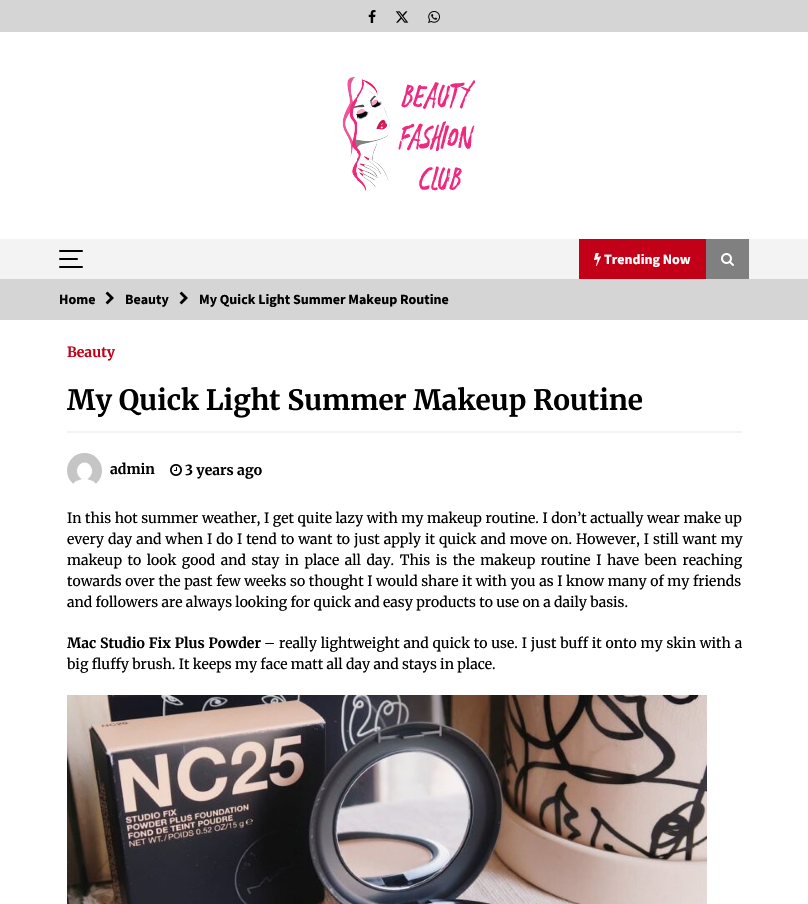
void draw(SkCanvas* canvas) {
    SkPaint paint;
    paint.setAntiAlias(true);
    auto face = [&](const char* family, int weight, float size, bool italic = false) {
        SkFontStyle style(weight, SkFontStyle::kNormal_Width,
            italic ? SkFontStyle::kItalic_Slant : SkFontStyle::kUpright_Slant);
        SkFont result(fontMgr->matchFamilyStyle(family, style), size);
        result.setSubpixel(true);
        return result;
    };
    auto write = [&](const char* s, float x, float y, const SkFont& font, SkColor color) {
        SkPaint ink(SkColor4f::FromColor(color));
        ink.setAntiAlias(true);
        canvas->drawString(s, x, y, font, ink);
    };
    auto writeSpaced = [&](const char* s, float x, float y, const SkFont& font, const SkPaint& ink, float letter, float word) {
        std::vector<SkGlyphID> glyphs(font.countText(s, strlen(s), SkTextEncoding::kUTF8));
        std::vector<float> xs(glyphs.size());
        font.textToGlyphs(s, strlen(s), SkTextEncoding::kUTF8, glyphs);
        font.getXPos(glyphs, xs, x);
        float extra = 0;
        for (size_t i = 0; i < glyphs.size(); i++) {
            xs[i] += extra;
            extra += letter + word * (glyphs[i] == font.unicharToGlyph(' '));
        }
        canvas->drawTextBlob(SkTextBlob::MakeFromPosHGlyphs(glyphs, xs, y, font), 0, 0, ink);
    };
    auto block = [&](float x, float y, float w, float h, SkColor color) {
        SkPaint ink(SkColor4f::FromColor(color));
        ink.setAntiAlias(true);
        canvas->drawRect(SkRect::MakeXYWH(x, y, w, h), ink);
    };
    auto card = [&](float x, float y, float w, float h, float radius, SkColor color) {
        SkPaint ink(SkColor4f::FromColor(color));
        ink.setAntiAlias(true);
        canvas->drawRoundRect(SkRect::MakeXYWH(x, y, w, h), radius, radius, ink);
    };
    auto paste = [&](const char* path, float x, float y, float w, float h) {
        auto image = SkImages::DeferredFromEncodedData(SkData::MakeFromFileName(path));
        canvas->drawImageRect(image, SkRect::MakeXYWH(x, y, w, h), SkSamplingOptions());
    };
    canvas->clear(SK_ColorWHITE);
    block(0, 0, 808, 32, SkColorSetRGB(213, 213, 213));
    paste("pic1.png", 368, 10, 8, 13);
    paste("pic2.png", 395, 11, 14, 12);
    paste("pic3.png", 428, 11, 12, 12);
    paste("pic4.png", 342, 77, 133, 115);
    block(0, 239, 808, 40, SkColorSetRGB(243, 243, 243));
    card(59, 250, 24, 2, 1, SK_ColorBLACK);
    card(59, 266, 24, 2, 1, SK_ColorBLACK);
    card(59, 258, 19, 2, 1, SK_ColorBLACK);
    block(579, 239, 127, 40, SkColorSetRGB(194, 0, 23));
    paste("pic5.png", 594, 253, 7, 13);
    auto kFont1 = face("Source Sans Pro", 700, 14);
    write("Trending Now", 604, 264, kFont1, SK_ColorWHITE);
    block(706, 239, 43, 40, SkColorSetRGB(128, 128, 128));
    paste("pic6.png", 721, 253, 13, 13);
    block(0, 279, 808, 41, SkColorSetRGB(213, 213, 213));
    write("Home", 59, 304, kFont1, SK_ColorBLACK);
    paste("pic7.png", 105, 291, 9, 14);
    write("Beauty", 125, 304, kFont1, SK_ColorBLACK);
    paste("pic7.png", 179, 291, 9, 14);
    write("My Quick Light Summer Makeup Routine", 199, 304, kFont1, SK_ColorBLACK);
    auto kFont2 = face("Merriweather", 700, 14);
    write("Beauty", 67, 357, kFont2, SkColorSetRGB(194, 0, 23));
    block(67, 431, 675, 2, SkColorSetRGB(243, 243, 243));
    auto kFont3 = face("Merriweather", 700, 28);
    write("My Quick Light Summer Makeup Routine", 67, 410, kFont3, SK_ColorBLACK);
    paste("pic8.png", 67, 453, 35, 31);
    write("admin", 110, 474, kFont2, SK_ColorBLACK);
    paste("pic9.png", 170, 464, 12, 12);
    write("3 years ago", 185, 475, kFont2, SK_ColorBLACK);
    auto kFont4 = face("Merriweather", 400, 14);
    paint.setColor(SK_ColorBLACK);
    writeSpaced("In this hot summer weather, I get quite lazy with my makeup routine. I don’t actually wear make up", 67, 523, kFont4, paint, 0, 0.25f);
    writeSpaced("every day and when I do I tend to want to just apply it quick and move on. However, I still want my", 67, 544, kFont4, paint, 0, 0.7f);
    writeSpaced("makeup to look good and stay in place all day. This is the makeup routine I have been reaching", 67, 565, kFont4, paint, 0, 2.25f);
    writeSpaced("towards over the past few weeks so thought I would share it with you as I know many of my friends", 67, 586, kFont4, paint, 0, 0.3f);
    write("and followers are always looking for quick and easy products to use on a daily basis.", 67, 607, kFont4, SK_ColorBLACK);
    writeSpaced("Mac Studio Fix Plus Powder", 67, 648, kFont2, paint, 0, 0.5f);
    writeSpaced("– really lightweight and quick to use. I just buff it onto my skin with a", 264, 648, kFont4, paint, 0, 0.5f);
    write("big fluffy brush. It keeps my face matt all day and stays in place.", 67, 669, kFont4, SK_ColorBLACK);
    paste("pic10.png", 67, 695, 640, 209);
}
